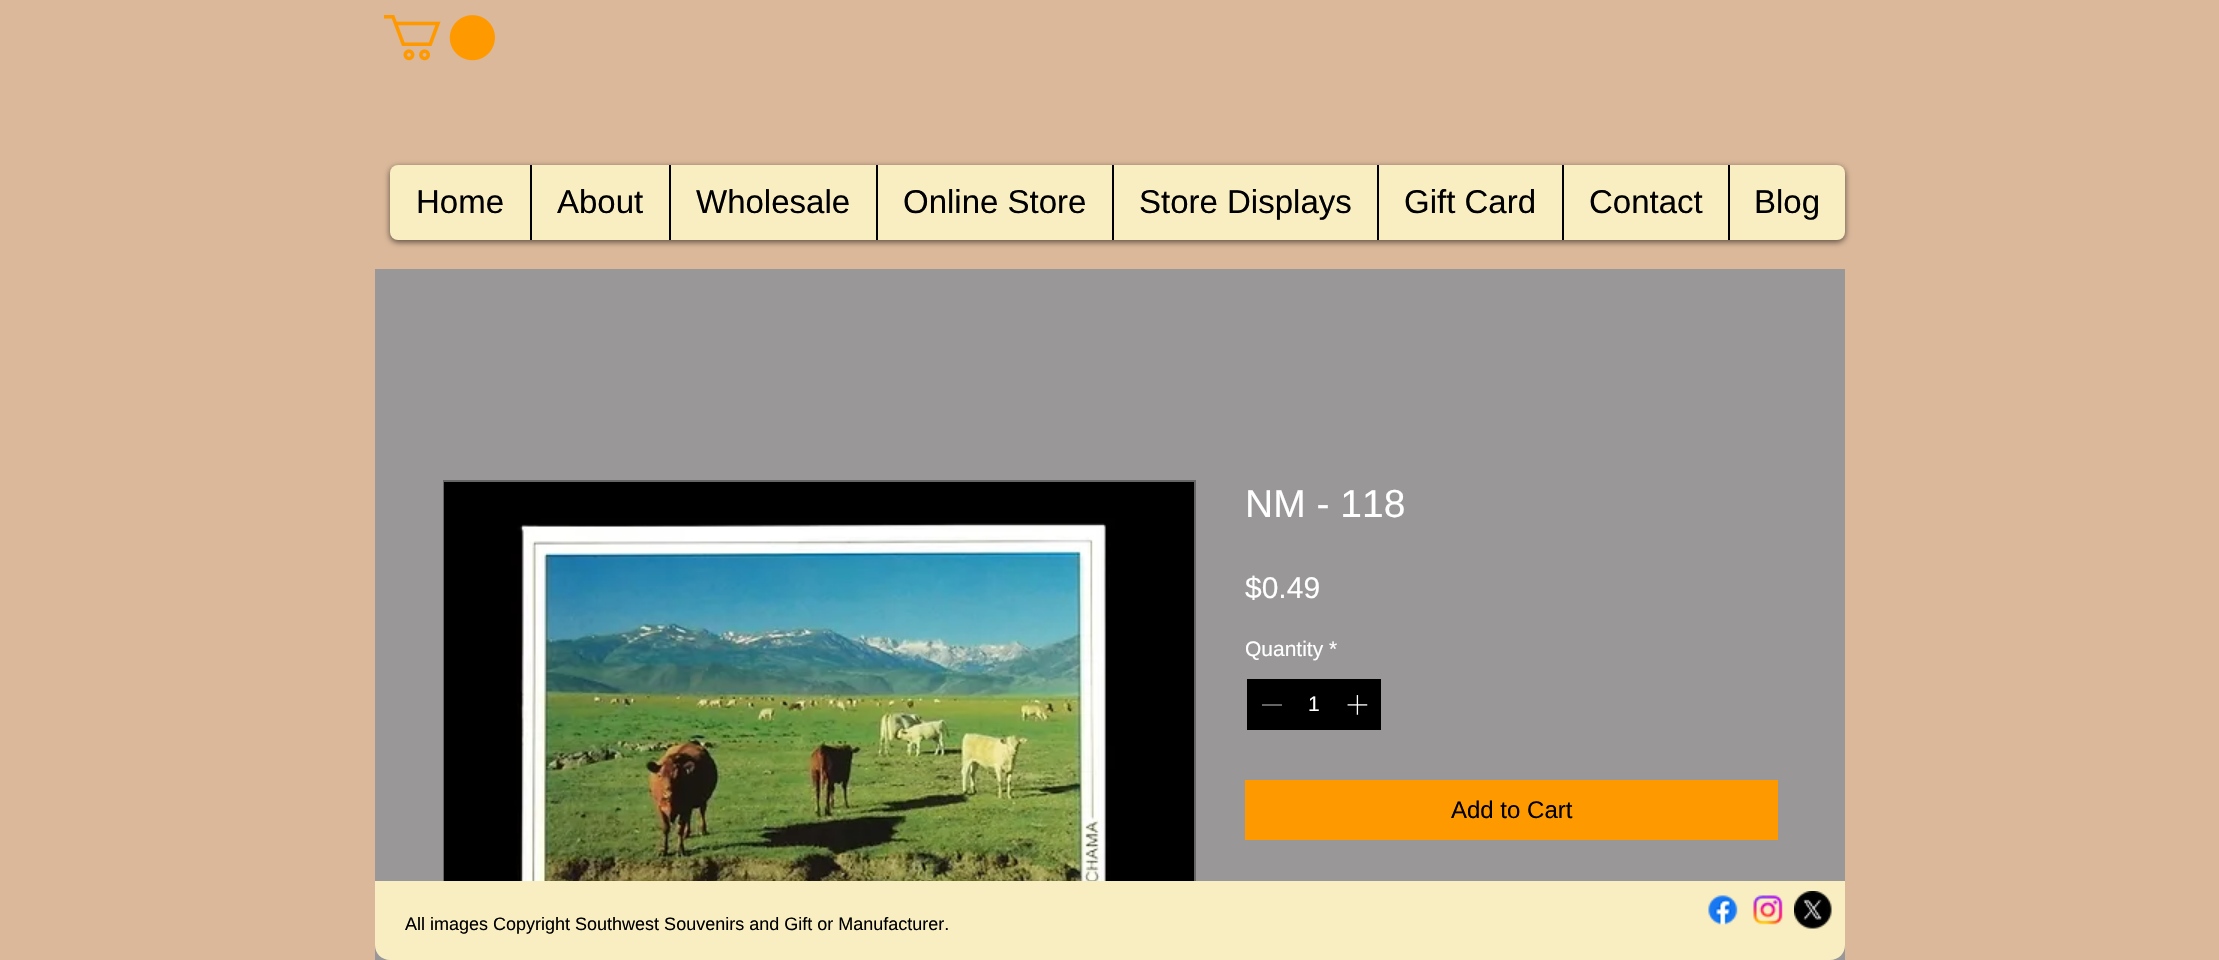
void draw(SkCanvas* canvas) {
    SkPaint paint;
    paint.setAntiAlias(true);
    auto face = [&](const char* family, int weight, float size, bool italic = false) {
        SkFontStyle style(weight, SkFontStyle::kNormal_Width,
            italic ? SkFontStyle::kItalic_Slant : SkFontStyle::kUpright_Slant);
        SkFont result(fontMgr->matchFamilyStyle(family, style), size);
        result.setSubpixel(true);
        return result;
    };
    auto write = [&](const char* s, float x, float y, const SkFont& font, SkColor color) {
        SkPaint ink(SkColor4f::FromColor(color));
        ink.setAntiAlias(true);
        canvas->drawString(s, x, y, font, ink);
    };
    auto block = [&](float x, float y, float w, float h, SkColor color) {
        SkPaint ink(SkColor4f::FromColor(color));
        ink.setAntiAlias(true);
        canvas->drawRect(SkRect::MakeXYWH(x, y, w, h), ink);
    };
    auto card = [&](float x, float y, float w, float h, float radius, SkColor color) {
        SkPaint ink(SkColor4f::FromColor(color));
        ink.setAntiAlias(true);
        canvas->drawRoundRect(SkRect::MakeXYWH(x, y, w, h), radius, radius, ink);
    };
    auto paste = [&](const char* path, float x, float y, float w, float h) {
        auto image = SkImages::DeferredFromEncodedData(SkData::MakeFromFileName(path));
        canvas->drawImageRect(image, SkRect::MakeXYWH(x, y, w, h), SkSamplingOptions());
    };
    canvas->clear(SkColorSetRGB(219, 184, 154));
    paste("pic1.png", 384, 15, 111, 46);
    paint.setColor(SkColorSetARGB(153, 0, 0, 0));
    paint.setMaskFilter(SkMaskFilter::MakeBlur(kNormal_SkBlurStyle, 3));
    canvas->drawRoundRect(SkRect::MakeXYWH(390, 167, 1455, 75), 8, 8, paint);
    paint.setMaskFilter(nullptr);
    card(390, 165, 1455, 75, 8, SkColorSetRGB(249, 238, 194));
    auto kFont1 = face("Liberation Sans", 400, 33);
    write("Home", 416, 213, kFont1, SK_ColorBLACK);
    block(530, 165, 2, 75, SK_ColorBLACK);
    write("About", 557, 213, kFont1, SK_ColorBLACK);
    block(669, 165, 2, 75, SK_ColorBLACK);
    write("Wholesale", 696, 213, kFont1, SK_ColorBLACK);
    block(876, 165, 2, 75, SK_ColorBLACK);
    write("Online Store", 903, 213, kFont1, SK_ColorBLACK);
    block(1112, 165, 2, 75, SK_ColorBLACK);
    write("Store Displays", 1139, 213, kFont1, SK_ColorBLACK);
    block(1377, 165, 2, 75, SK_ColorBLACK);
    write("Gift Card", 1404, 213, kFont1, SK_ColorBLACK);
    block(1562, 165, 2, 75, SK_ColorBLACK);
    write("Contact", 1589, 213, kFont1, SK_ColorBLACK);
    block(1728, 165, 2, 75, SK_ColorBLACK);
    write("Blog", 1754, 213, kFont1, SK_ColorBLACK);
    block(375, 269, 1470, 691, SkColorSetRGB(153, 151, 151));
    paint.setStyle(SkPaint::kStroke_Style);
    paint.setStrokeWidth(2);
    paint.setColor(SkColorSetRGB(102, 102, 102));
    canvas->drawRect(SkRect::MakeXYWH(444, 481, 751, 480), paint);
    paste("pic2.png", 444, 482, 750, 399);
    auto kFont2 = face("Liberation Sans", 400, 39);
    write("NM - 118", 1245, 517, kFont2, SK_ColorWHITE);
    auto kFont3 = face("Liberation Sans", 400, 30);
    write("$0.49", 1245, 598, kFont3, SK_ColorWHITE);
    auto kFont4 = face("Liberation Sans", 400, 21);
    write("Quantity *", 1245, 656, kFont4, SK_ColorWHITE);
    block(1247, 679, 134, 51, SK_ColorBLACK);
    block(1262, 704, 20, 2, SkColorSetRGB(100, 100, 100));
    write("1", 1308, 711, kFont4, SK_ColorWHITE);
    paste("pic3.png", 1347, 695, 21, 20);
    block(1245, 780, 533, 60, SkColorSetRGB(255, 153, 0));
    auto kFont5 = face("Liberation Sans", 400, 24);
    write("Add to Cart", 1451, 818, kFont5, SK_ColorBLACK);
    paint.setStyle(SkPaint::kFill_Style);
    paint.setColor(SkColorSetRGB(249, 238, 194));
    canvas->drawPath(SkPathBuilder().moveTo(375, 881).lineTo(1845, 881).lineTo(1845, 945).cubicTo(1845, 953.5f, 1838.5f, 960, 1830, 960).lineTo(390, 960).cubicTo(381.5f, 960, 375, 953.5f, 375, 945).close().detach(), paint);
    auto kFont6 = face("Liberation Sans", 400, 18);
    write("All images Copyright Southwest Souvenirs and Gift or Manufacturer.", 405, 930, kFont6, SK_ColorBLACK);
    paste("pic4.png", 1708, 895, 30, 30);
    paste("pic5.png", 1753, 895, 30, 30);
    paste("pic6.png", 1794, 891, 38, 38);
}
